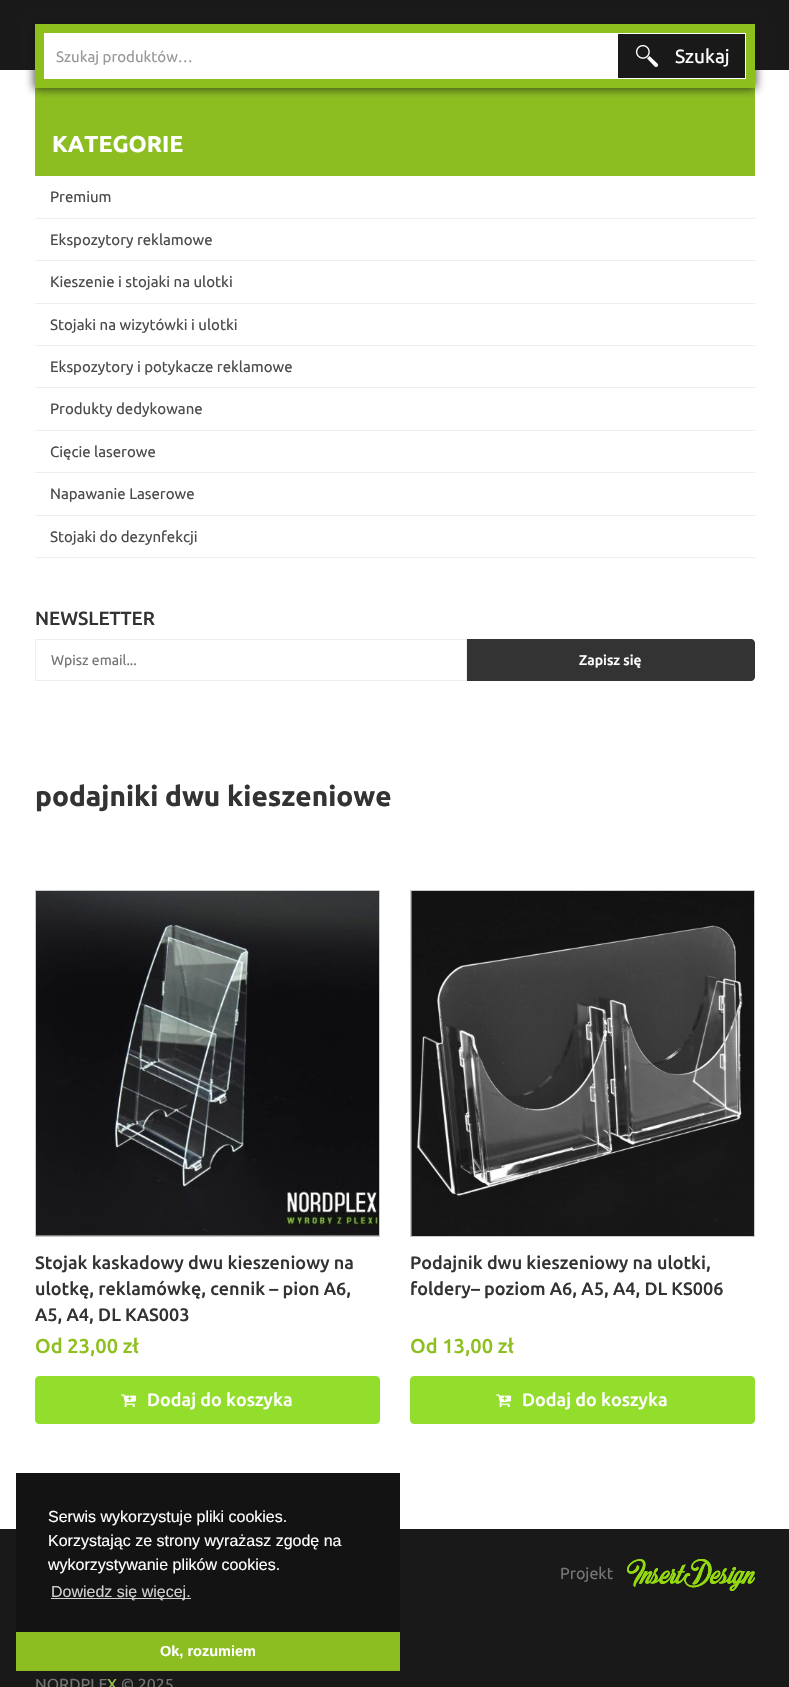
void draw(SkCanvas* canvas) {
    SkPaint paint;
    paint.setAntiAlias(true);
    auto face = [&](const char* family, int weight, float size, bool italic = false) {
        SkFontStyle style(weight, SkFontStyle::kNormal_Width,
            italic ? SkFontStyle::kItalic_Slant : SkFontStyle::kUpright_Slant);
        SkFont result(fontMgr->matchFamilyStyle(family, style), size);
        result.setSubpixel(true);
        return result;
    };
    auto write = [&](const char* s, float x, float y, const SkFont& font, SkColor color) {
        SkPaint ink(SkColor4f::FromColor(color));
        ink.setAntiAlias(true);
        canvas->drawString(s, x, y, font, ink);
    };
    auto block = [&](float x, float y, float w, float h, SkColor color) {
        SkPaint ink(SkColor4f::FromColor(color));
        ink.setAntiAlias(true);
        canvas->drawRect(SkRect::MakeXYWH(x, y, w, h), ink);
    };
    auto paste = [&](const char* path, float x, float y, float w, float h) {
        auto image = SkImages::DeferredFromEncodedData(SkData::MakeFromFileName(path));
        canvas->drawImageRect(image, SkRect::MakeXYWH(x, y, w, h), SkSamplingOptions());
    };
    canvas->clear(SK_ColorWHITE);
    block(0, 0, 789, 70, SkColorSetRGB(25, 25, 25));
    block(35, 88, 720, 88, SkColorSetRGB(140, 190, 33));
    paint.setColor(SkColorSetARGB(191, 23, 21, 20));
    paint.setMaskFilter(SkMaskFilter::MakeBlur(kNormal_SkBlurStyle, 4.5f));
    canvas->drawRect(SkRect::MakeXYWH(34, 23, 722, 66), paint);
    paint.setMaskFilter(nullptr);
    block(35, 24, 720, 64, SkColorSetRGB(141, 191, 29));
    block(44, 33, 702, 46, SK_ColorWHITE);
    auto kFont1 = face("Ubuntu", 400, 15);
    write("Szukaj produktów…", 56, 62, kFont1, SkColorSetRGB(153, 153, 153));
    block(618, 34, 127, 44, SkColorSetRGB(25, 25, 25));
    paste("pic1.png", 636, 45, 22, 22);
    auto kFont2 = face("Ubuntu", 400, 19);
    write("Szukaj", 675, 63, kFont2, SK_ColorWHITE);
    auto kFont3 = face("Ubuntu", 700, 23);
    write("KATEGORIE", 52, 152, kFont3, SK_ColorWHITE);
    block(35, 218, 720, 1, SkColorSetRGB(238, 238, 238));
    write("Premium", 50, 202, kFont1, SkColorSetRGB(75, 75, 75));
    block(35, 260, 720, 1, SkColorSetRGB(238, 238, 238));
    write("Ekspozytory reklamowe", 50, 245, kFont1, SkColorSetRGB(75, 75, 75));
    block(35, 303, 720, 1, SkColorSetRGB(238, 238, 238));
    write("Kieszenie i stojaki na ulotki", 50, 287, kFont1, SkColorSetRGB(75, 75, 75));
    block(35, 345, 720, 1, SkColorSetRGB(238, 238, 238));
    write("Stojaki na wizytówki i ulotki", 50, 330, kFont1, SkColorSetRGB(75, 75, 75));
    block(35, 387, 720, 1, SkColorSetRGB(238, 238, 238));
    write("Ekspozytory i potykacze reklamowe", 50, 372, kFont1, SkColorSetRGB(75, 75, 75));
    block(35, 430, 720, 1, SkColorSetRGB(238, 238, 238));
    write("Produkty dedykowane", 50, 414, kFont1, SkColorSetRGB(75, 75, 75));
    block(35, 472, 720, 1, SkColorSetRGB(238, 238, 238));
    write("Cięcie laserowe", 50, 457, kFont1, SkColorSetRGB(75, 75, 75));
    block(35, 515, 720, 1, SkColorSetRGB(238, 238, 238));
    write("Napawanie Laserowe", 50, 499, kFont1, SkColorSetRGB(75, 75, 75));
    block(35, 557, 720, 1, SkColorSetRGB(238, 238, 238));
    write("Stojaki do dezynfekcji", 50, 542, kFont1, SkColorSetRGB(75, 75, 75));
    auto kFont4 = face("Ubuntu", 500, 19);
    write("NEWSLETTER", 35, 625, kFont4, SkColorSetRGB(51, 51, 51));
    paint.setStyle(SkPaint::kStroke_Style);
    paint.setStrokeWidth(1);
    paint.setColor(SkColorSetRGB(238, 238, 238));
    canvas->drawRect(SkRect::MakeXYWH(35.5f, 639.5f, 431, 41), paint);
    auto kFont5 = face("Ubuntu", 400, 14);
    write("Wpisz email...", 51, 665, kFont5, SkColorSetRGB(117, 117, 117));
    paint.setStyle(SkPaint::kFill_Style);
    paint.setColor(SkColorSetRGB(51, 51, 51));
    canvas->drawPath(SkPathBuilder().moveTo(467, 639).lineTo(751, 639).cubicTo(753, 639, 755, 641, 755, 643).lineTo(755, 677).cubicTo(755, 679, 753, 681, 751, 681).lineTo(467, 681).close().detach(), paint);
    auto kFont6 = face("Ubuntu", 500, 14);
    write("Zapisz się", 579, 665, kFont6, SK_ColorWHITE);
    auto kFont7 = face("Ubuntu", 700, 28);
    write("podajniki dwu kieszeniowe", 35, 806, kFont7, SkColorSetRGB(51, 51, 51));
    paste("pic2.png", 36, 891, 343, 345);
    paint.setStyle(SkPaint::kStroke_Style);
    paint.setColor(SkColorSetRGB(202, 202, 202));
    canvas->drawRect(SkRect::MakeXYWH(35.5f, 890.5f, 344, 346), paint);
    auto kFont8 = face("Ubuntu", 500, 18);
    write("Stojak kaskadowy dwu kieszeniowy na", 35, 1269, kFont8, SkColorSetRGB(51, 51, 51));
    write("ulotkę, reklamówkę, cennik – pion A6,", 35, 1295, kFont8, SkColorSetRGB(51, 51, 51));
    write("A5, A4, DL KAS003", 35, 1321, kFont8, SkColorSetRGB(51, 51, 51));
    auto kFont9 = face("Ubuntu", 500, 20);
    write("Od 23,00 zł", 35, 1353, kFont9, SkColorSetRGB(141, 191, 29));
    paint.setStyle(SkPaint::kFill_Style);
    paint.setColor(SkColorSetRGB(147, 222, 44));
    canvas->drawRoundRect(SkRect::MakeXYWH(35.5f, 1376.5f, 344, 47), 3.5f, 3.5f, paint);
    paint.setStyle(SkPaint::kStroke_Style);
    canvas->drawRoundRect(SkRect::MakeXYWH(35.5f, 1376.5f, 344, 47), 3.5f, 3.5f, paint);
    paste("pic3.png", 121, 1394, 16, 14);
    write("Dodaj do koszyka", 147, 1406, kFont8, SK_ColorWHITE);
    paste("pic4.png", 411, 891, 343, 345);
    paint.setColor(SkColorSetRGB(202, 202, 202));
    canvas->drawRect(SkRect::MakeXYWH(410.5f, 890.5f, 344, 346), paint);
    write("Podajnik dwu kieszeniowy na ulotki,", 410, 1269, kFont8, SkColorSetRGB(51, 51, 51));
    write("foldery– poziom A6, A5, A4, DL KS006", 410, 1295, kFont8, SkColorSetRGB(51, 51, 51));
    write("Od 13,00 zł", 410, 1353, kFont9, SkColorSetRGB(141, 191, 29));
    paint.setStyle(SkPaint::kFill_Style);
    paint.setColor(SkColorSetRGB(147, 222, 44));
    canvas->drawRoundRect(SkRect::MakeXYWH(410.5f, 1376.5f, 344, 47), 3.5f, 3.5f, paint);
    paint.setStyle(SkPaint::kStroke_Style);
    canvas->drawRoundRect(SkRect::MakeXYWH(410.5f, 1376.5f, 344, 47), 3.5f, 3.5f, paint);
    paste("pic3.png", 496, 1394, 16, 14);
    write("Dodaj do koszyka", 522, 1406, kFont8, SK_ColorWHITE);
    block(0, 1529, 789, 158, SkColorSetRGB(25, 25, 25));
    auto kFont10 = face("Ubuntu", 400, 16);
    write("Projekt", 560, 1579, kFont10, SkColorSetRGB(117, 117, 117));
    paste("pic5.png", 627, 1559, 128, 32);
    write("NORDPLE", 35, 1690, kFont10, SkColorSetRGB(117, 117, 117));
    write("X", 107, 1690, kFont10, SkColorSetRGB(153, 195, 73));
    write("© 2025", 121, 1690, kFont10, SkColorSetRGB(117, 117, 117));
    block(16, 1473, 384, 159, SkColorSetRGB(19, 19, 19));
    auto kFont11 = face("Liberation Sans", 400, 16);
    write("Serwis wykorzystuje pliki cookies.", 48, 1522, kFont11, SK_ColorWHITE);
    write("Korzystając ze strony wyrażasz zgodę na", 48, 1546, kFont11, SK_ColorWHITE);
    write("wykorzystywanie plików cookies.", 48, 1570, kFont11, SK_ColorWHITE);
    block(51, 1598, 140, 1, SkColorSetRGB(208, 208, 208));
    write("Dowiedz się więcej.", 51, 1597, kFont11, SkColorSetRGB(208, 208, 208));
    block(16, 1632, 384, 39, SkColorSetRGB(140, 190, 33));
    auto kFont12 = face("Liberation Sans", 700, 14.5f);
    write("Ok, rozumiem", 160, 1656, kFont12, SK_ColorWHITE);
}
